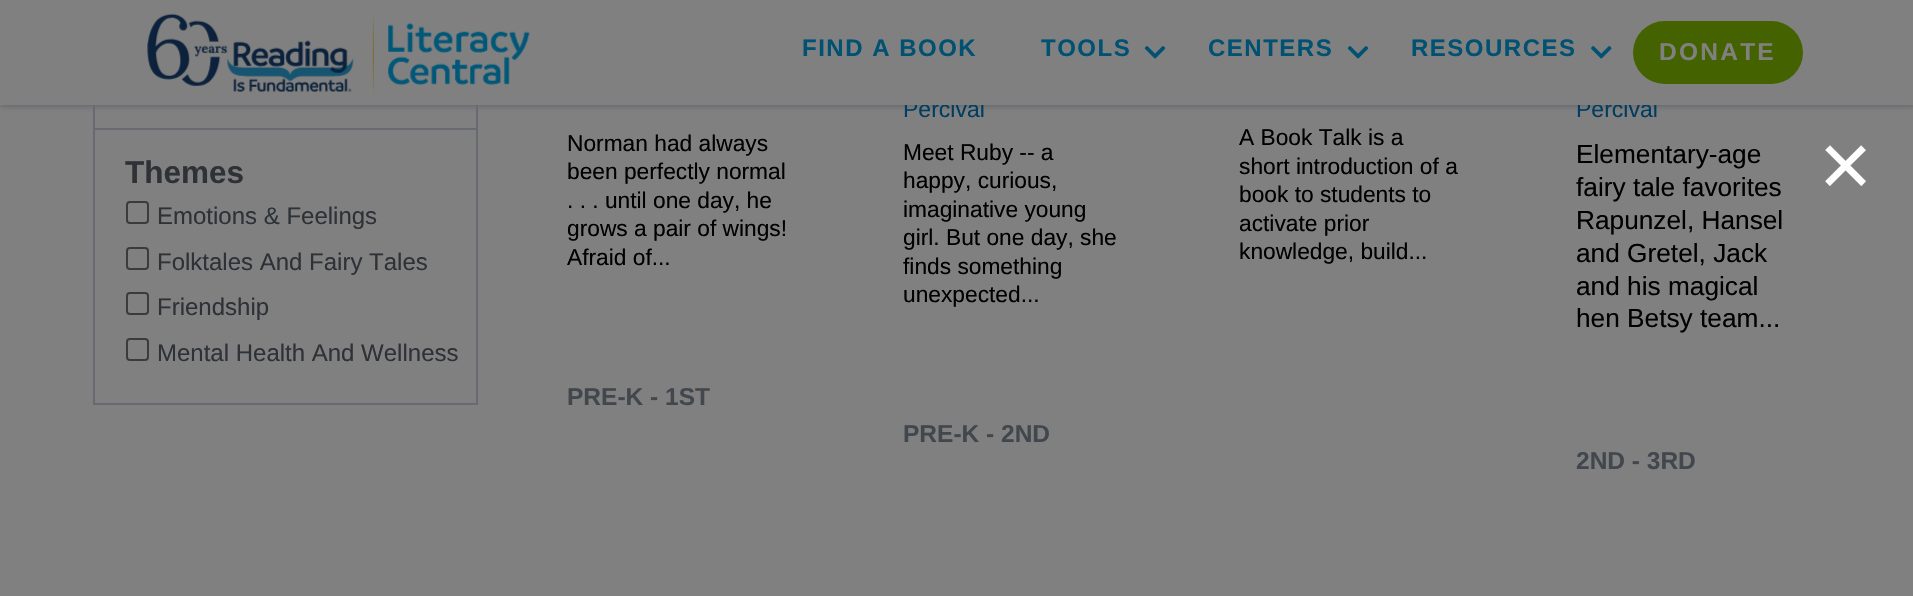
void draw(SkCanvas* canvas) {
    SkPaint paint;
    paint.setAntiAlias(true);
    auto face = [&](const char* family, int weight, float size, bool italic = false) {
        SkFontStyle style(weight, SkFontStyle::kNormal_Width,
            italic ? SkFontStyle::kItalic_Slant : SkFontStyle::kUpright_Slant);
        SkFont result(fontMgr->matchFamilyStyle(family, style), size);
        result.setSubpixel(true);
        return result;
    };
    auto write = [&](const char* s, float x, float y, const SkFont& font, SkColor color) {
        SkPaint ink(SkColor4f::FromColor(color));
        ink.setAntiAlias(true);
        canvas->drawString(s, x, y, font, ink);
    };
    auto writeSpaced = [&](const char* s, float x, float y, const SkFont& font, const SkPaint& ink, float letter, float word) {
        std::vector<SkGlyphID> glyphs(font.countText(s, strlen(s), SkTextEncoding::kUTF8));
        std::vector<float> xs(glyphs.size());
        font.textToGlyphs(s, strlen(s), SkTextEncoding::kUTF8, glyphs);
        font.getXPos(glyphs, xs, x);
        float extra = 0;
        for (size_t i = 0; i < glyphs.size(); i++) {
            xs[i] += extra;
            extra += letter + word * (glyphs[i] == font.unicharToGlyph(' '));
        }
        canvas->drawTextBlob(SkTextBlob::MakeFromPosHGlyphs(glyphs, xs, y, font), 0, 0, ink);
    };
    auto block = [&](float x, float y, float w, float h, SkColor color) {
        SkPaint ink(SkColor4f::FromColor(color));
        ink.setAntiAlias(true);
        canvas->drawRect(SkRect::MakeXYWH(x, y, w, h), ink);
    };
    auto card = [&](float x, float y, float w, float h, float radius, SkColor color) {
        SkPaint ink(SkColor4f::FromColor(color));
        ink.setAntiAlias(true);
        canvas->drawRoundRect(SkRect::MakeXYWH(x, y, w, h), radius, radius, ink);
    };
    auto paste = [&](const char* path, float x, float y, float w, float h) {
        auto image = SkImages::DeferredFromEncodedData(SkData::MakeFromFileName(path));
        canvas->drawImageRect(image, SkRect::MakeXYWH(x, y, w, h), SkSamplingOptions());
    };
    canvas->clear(SkColorSetRGB(128, 128, 128));
    block(476, 105, 2, 299, SkColorSetRGB(103, 106, 110));
    block(93, 128, 385, 2, SkColorSetRGB(103, 106, 110));
    block(93, 105, 2, 25, SkColorSetRGB(103, 106, 110));
    paint.setColor(SkColorSetRGB(103, 106, 110));
    paint.setMaskFilter(SkMaskFilter::MakeBlur(kNormal_SkBlurStyle, 2.5f));
    canvas->drawRect(SkRect::MakeXYWH(0, 2, 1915, 105), paint);
    paint.setMaskFilter(nullptr);
    auto kFont1 = face("Liberation Sans", 400, 23);
    write("Percival", 903, 117, kFont1, SkColorSetRGB(0, 61, 96));
    write("Percival", 1576, 117, kFont1, SkColorSetRGB(0, 61, 96));
    block(0, 0, 1913, 105, SkColorSetRGB(128, 128, 128));
    paste("pic1.png", 147, 13, 207, 79);
    paste("pic2.png", 372, 14, 2, 81);
    paste("pic3.png", 388, 22, 142, 63);
    auto kFont2 = face("Liberation Sans", 700, 24);
    paint.setColor(SkColorSetRGB(0, 81, 114));
    writeSpaced("FIND A BOOK", 802, 56, kFont2, paint, 1.5f, 0);
    writeSpaced("TOOLS", 1041, 56, kFont2, paint, 1.5f, 0);
    paste("pic4.png", 1144, 46, 22, 13);
    writeSpaced("CENTERS", 1208, 56, kFont2, paint, 1.5f, 0);
    paste("pic4.png", 1347, 46, 22, 13);
    writeSpaced("RESOURCES", 1411, 56, kFont2, paint, 1.5f, 0);
    paste("pic5.png", 1591, 46, 21, 13);
    card(1633, 21, 170, 63, 31.5f, SkColorSetRGB(69, 98, 0));
    auto kFont3 = face("Liberation Sans", 700, 24.5f);
    paint.setColor(SkColorSetRGB(128, 128, 128));
    writeSpaced("DONATE", 1659, 60, kFont3, paint, 2.25f, 0);
    block(93, 403, 385, 2, SkColorSetRGB(103, 106, 110));
    block(93, 130, 2, 274, SkColorSetRGB(103, 106, 110));
    auto kFont4 = face("Liberation Sans", 700, 31.5f);
    write("Themes", 125, 183, kFont4, SkColorSetRGB(46, 49, 54));
    paint.setStyle(SkPaint::kStroke_Style);
    paint.setStrokeWidth(2);
    paint.setColor(SkColorSetRGB(59, 59, 59));
    canvas->drawRoundRect(SkRect::MakeXYWH(127, 202, 21, 21), 3, 3, paint);
    auto kFont5 = face("Liberation Sans", 400, 24);
    write("Emotions & Feelings", 157, 224, kFont5, SkColorSetRGB(46, 49, 54));
    canvas->drawRoundRect(SkRect::MakeXYWH(127, 248, 21, 21), 3, 3, paint);
    write("Folktales And Fairy Tales", 157, 270, kFont5, SkColorSetRGB(46, 49, 54));
    canvas->drawRoundRect(SkRect::MakeXYWH(127, 293, 21, 21), 3, 3, paint);
    write("Friendship", 157, 315, kFont5, SkColorSetRGB(46, 49, 54));
    canvas->drawRoundRect(SkRect::MakeXYWH(127, 339, 21, 21), 3, 3, paint);
    write("Mental Health And Wellness", 157, 361, kFont5, SkColorSetRGB(46, 49, 54));
    auto kFont6 = face("Liberation Sans", 400, 22.75f);
    write("Norman had always", 567, 151, kFont6, SK_ColorBLACK);
    write("been perfectly normal", 567, 179, kFont6, SK_ColorBLACK);
    write(". . . until one day, he", 567, 208, kFont6, SK_ColorBLACK);
    write("grows a pair of wings!", 567, 236, kFont6, SK_ColorBLACK);
    write("Afraid of...", 567, 265, kFont6, SK_ColorBLACK);
    write("PRE-K - 1ST", 567, 405, kFont3, SkColorSetRGB(66, 71, 78));
    write("Meet Ruby -- a", 903, 160, kFont6, SK_ColorBLACK);
    write("happy, curious,", 903, 188, kFont6, SK_ColorBLACK);
    write("imaginative young", 903, 217, kFont6, SK_ColorBLACK);
    write("girl. But one day, she", 903, 245, kFont6, SK_ColorBLACK);
    write("finds something", 903, 274, kFont6, SK_ColorBLACK);
    write("unexpected...", 903, 302, kFont6, SK_ColorBLACK);
    write("PRE-K - 2ND", 903, 442, kFont3, SkColorSetRGB(66, 71, 78));
    write("A Book Talk is a", 1239, 145, kFont6, SK_ColorBLACK);
    write("short introduction of a", 1239, 174, kFont6, SK_ColorBLACK);
    write("book to students to", 1239, 202, kFont6, SK_ColorBLACK);
    write("activate prior", 1239, 231, kFont6, SK_ColorBLACK);
    write("knowledge, build...", 1239, 259, kFont6, SK_ColorBLACK);
    auto kFont7 = face("Liberation Sans", 400, 26.25f);
    write("Elementary-age", 1576, 163, kFont7, SK_ColorBLACK);
    write("fairy tale favorites", 1576, 196, kFont7, SK_ColorBLACK);
    write("Rapunzel, Hansel", 1576, 229, kFont7, SK_ColorBLACK);
    write("and Gretel, Jack", 1576, 262, kFont7, SK_ColorBLACK);
    write("and his magical", 1576, 295, kFont7, SK_ColorBLACK);
    write("hen Betsy team...", 1576, 327, kFont7, SK_ColorBLACK);
    write("2ND - 3RD", 1576, 469, kFont3, SkColorSetRGB(66, 71, 78));
    auto kFont8 = face("Liberation Sans", 400, 91);
    write("×", 1819, 196, kFont8, SK_ColorWHITE);
}
